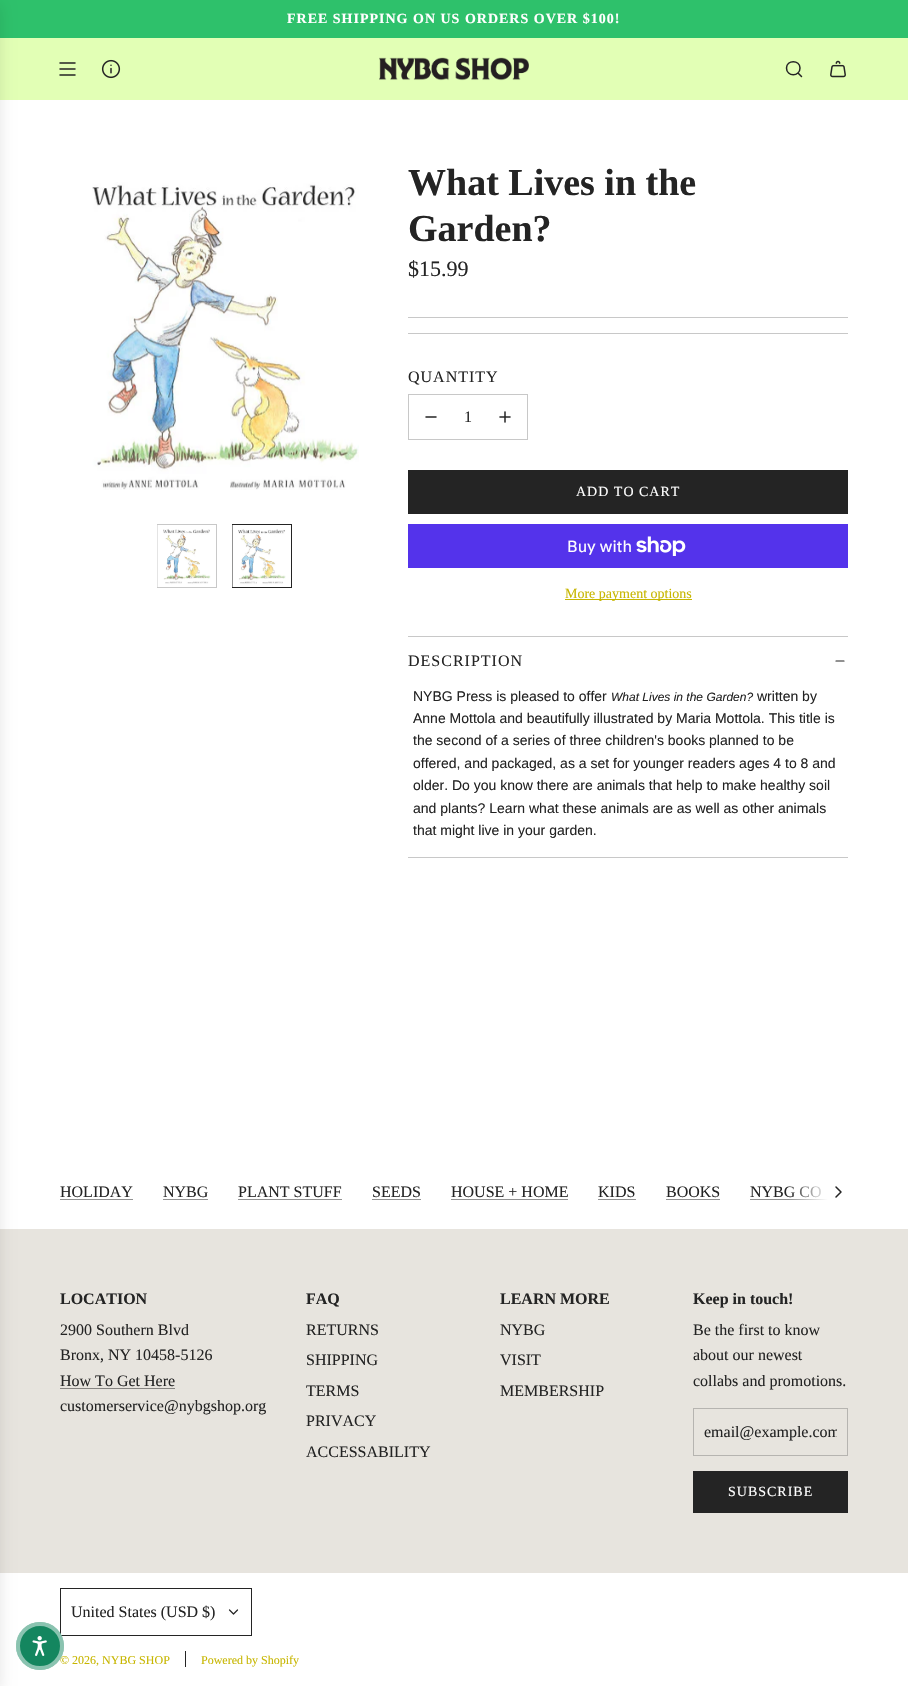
void draw(SkCanvas* canvas) {
    SkPaint paint;
    paint.setAntiAlias(true);
    auto face = [&](const char* family, int weight, float size, bool italic = false) {
        SkFontStyle style(weight, SkFontStyle::kNormal_Width,
            italic ? SkFontStyle::kItalic_Slant : SkFontStyle::kUpright_Slant);
        SkFont result(fontMgr->matchFamilyStyle(family, style), size);
        result.setSubpixel(true);
        return result;
    };
    auto write = [&](const char* s, float x, float y, const SkFont& font, SkColor color) {
        SkPaint ink(SkColor4f::FromColor(color));
        ink.setAntiAlias(true);
        canvas->drawString(s, x, y, font, ink);
    };
    auto writeSpaced = [&](const char* s, float x, float y, const SkFont& font, const SkPaint& ink, float letter, float word) {
        std::vector<SkGlyphID> glyphs(font.countText(s, strlen(s), SkTextEncoding::kUTF8));
        std::vector<float> xs(glyphs.size());
        font.textToGlyphs(s, strlen(s), SkTextEncoding::kUTF8, glyphs);
        font.getXPos(glyphs, xs, x);
        float extra = 0;
        for (size_t i = 0; i < glyphs.size(); i++) {
            xs[i] += extra;
            extra += letter + word * (glyphs[i] == font.unicharToGlyph(' '));
        }
        canvas->drawTextBlob(SkTextBlob::MakeFromPosHGlyphs(glyphs, xs, y, font), 0, 0, ink);
    };
    auto block = [&](float x, float y, float w, float h, SkColor color) {
        SkPaint ink(SkColor4f::FromColor(color));
        ink.setAntiAlias(true);
        canvas->drawRect(SkRect::MakeXYWH(x, y, w, h), ink);
    };
    auto paste = [&](const char* path, float x, float y, float w, float h) {
        auto image = SkImages::DeferredFromEncodedData(SkData::MakeFromFileName(path));
        canvas->drawImageRect(image, SkRect::MakeXYWH(x, y, w, h), SkSamplingOptions());
    };
    canvas->clear(SK_ColorWHITE);
    block(0, 38, 908, 62, SkColorSetRGB(226, 255, 181));
    block(0, 0, 908, 38, SkColorSetRGB(46, 193, 107));
    block(0, 1229, 908, 344, SkColorSetRGB(231, 228, 222));
    paint.setColor(SkColorSetARGB(26, 0, 0, 0));
    paint.setMaskFilter(SkMaskFilter::MakeBlur(kNormal_SkBlurStyle, 7.5f));
    canvas->drawRect(SkRect::MakeXYWH(-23, 5, 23, 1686), paint);
    paint.setMaskFilter(nullptr);
    paint.setStyle(SkPaint::kStroke_Style);
    paint.setStrokeWidth(1.5f);
    paint.setStrokeCap(SkPaint::kRound_Cap);
    paint.setStrokeJoin(SkPaint::kRound_Join);
    paint.setColor(SkColorSetRGB(36, 36, 36));
    canvas->drawPath(SkPathBuilder().moveTo(60, 63).lineTo(75, 63).moveTo(60, 69).lineTo(75, 69).moveTo(60, 75).lineTo(75, 75).detach(), paint);
    paste("pic1.png", 101, 59, 20, 20);
    paste("pic2.png", 379, 57, 150, 24);
    canvas->drawPath(SkPathBuilder().moveTo(798, 73).lineTo(801.5f, 76.5f).moveTo(786.5f, 68).cubicTo(786.5f, 77, 800, 77, 800, 68).cubicTo(800, 59.5f, 786.5f, 59.5f, 786.5f, 68).close().detach(), paint);
    paste("pic3.png", 830, 60, 16, 18);
    auto kFont1 = face("Liberation Serif", 700, 14);
    paint.setStyle(SkPaint::kFill_Style);
    paint.setColor(SK_ColorWHITE);
    writeSpaced("FREE SHIPPING ON US ORDERS OVER $100!", 287, 23, kFont1, paint, 1, 0);
    paste("pic4.png", 92, 182, 267, 308);
    paint.setStyle(SkPaint::kStroke_Style);
    paint.setStrokeWidth(1);
    paint.setStrokeCap(SkPaint::kButt_Cap);
    paint.setStrokeJoin(SkPaint::kMiter_Join);
    paint.setColor(SkColorSetRGB(200, 200, 200));
    canvas->drawRect(SkRect::MakeXYWH(157.5f, 524.5f, 59, 63), paint);
    paste("pic5.png", 157, 525, 54, 62);
    paint.setColor(SkColorSetRGB(36, 36, 36));
    canvas->drawRect(SkRect::MakeXYWH(232.5f, 524.5f, 59, 63), paint);
    paste("pic6.png", 232, 525, 54, 62);
    auto kFont2 = face("Liberation Serif", 700, 38);
    write("What Lives in the", 408, 195, kFont2, SkColorSetRGB(36, 36, 36));
    write("Garden?", 408, 241, kFont2, SkColorSetRGB(36, 36, 36));
    auto kFont3 = face("Liberation Serif", 400, 22);
    write("$15.99", 408, 276, kFont3, SkColorSetRGB(36, 36, 36));
    block(408, 317, 440, 1, SkColorSetRGB(200, 200, 200));
    block(408, 333, 440, 1, SkColorSetRGB(200, 200, 200));
    auto kFont4 = face("Liberation Serif", 400, 16);
    paint.setStyle(SkPaint::kFill_Style);
    writeSpaced("QUANTITY", 408, 382, kFont4, paint, 1, 0);
    paint.setStyle(SkPaint::kStroke_Style);
    paint.setColor(SkColorSetRGB(200, 200, 200));
    canvas->drawRect(SkRect::MakeXYWH(408.5f, 394.5f, 119, 45), paint);
    paint.setStrokeWidth(1.5f);
    paint.setStrokeCap(SkPaint::kRound_Cap);
    paint.setStrokeJoin(SkPaint::kRound_Join);
    paint.setColor(SkColorSetRGB(36, 36, 36));
    canvas->drawPath(SkPathBuilder().moveTo(426, 417).lineTo(436, 417).detach(), paint);
    write("1", 464, 422, kFont4, SkColorSetRGB(36, 36, 36));
    paste("pic7.png", 499, 411, 12, 12);
    block(408, 470, 440, 44, SkColorSetRGB(36, 36, 36));
    auto kFont5 = face("Liberation Serif", 400, 14);
    paint.setStyle(SkPaint::kFill_Style);
    paint.setColor(SK_ColorWHITE);
    writeSpaced("ADD TO CART", 576, 496, kFont5, paint, 1, 0);
    block(408, 524, 440, 44, SkColorSetRGB(84, 51, 235));
    auto kFont6 = face("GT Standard", 400, 16);
    write("Buy with", 567, 552, kFont6, SK_ColorWHITE);
    paste("pic8.png", 636, 536, 50, 20);
    block(565, 599, 127, 1, SkColorSetRGB(199, 182, 0));
    write("More payment options", 565, 598, kFont5, SkColorSetRGB(199, 182, 0));
    block(408, 636, 440, 1, SkColorSetRGB(200, 200, 200));
    block(408, 857, 440, 1, SkColorSetRGB(200, 200, 200));
    paint.setColor(SkColorSetRGB(36, 36, 36));
    writeSpaced("DESCRIPTION", 408, 666, kFont4, paint, 1, 0);
    paint.setStyle(SkPaint::kStroke_Style);
    paint.setStrokeWidth(1.2f);
    canvas->drawPath(SkPathBuilder().moveTo(836, 661).lineTo(844, 661).detach(), paint);
    auto kFont7 = face("Liberation Sans", 400, 14);
    write("NYBG Press is pleased to offer", 413, 701, kFont7, SkColorSetRGB(36, 36, 36));
    auto kFont8 = face("Liberation Sans", 400, 12, true);
    write("What Lives in the Garden?", 611, 701, kFont8, SkColorSetRGB(36, 36, 36));
    write("written by", 757, 701, kFont7, SkColorSetRGB(36, 36, 36));
    write("Anne Mottola and beautifully illustrated by Maria Mottola. This title is", 413, 723, kFont7, SkColorSetRGB(36, 36, 36));
    write("the second of a series of three children's books planned to be", 413, 745, kFont7, SkColorSetRGB(36, 36, 36));
    write("offered, and packaged, as a set for younger readers ages 4 to 8 and", 413, 768, kFont7, SkColorSetRGB(36, 36, 36));
    write("older. Do you know there are animals that help to make healthy soil", 413, 790, kFont7, SkColorSetRGB(36, 36, 36));
    write("and plants? Learn what these animals are as well as other animals", 413, 813, kFont7, SkColorSetRGB(36, 36, 36));
    write("that might live in your garden.", 413, 835, kFont7, SkColorSetRGB(36, 36, 36));
    paint.setStrokeWidth(1);
    paint.setStrokeCap(SkPaint::kButt_Cap);
    paint.setStrokeJoin(SkPaint::kMiter_Join);
    canvas->drawRect(SkRect::MakeXYWH(60.5f, 1588.5f, 191, 47), paint);
    auto kFont9 = face("Liberation Serif", 400, 12);
    write("© 2026, NYBG SHOP", 60, 1664, kFont9, SkColorSetRGB(199, 182, 0));
    paint.setStyle(SkPaint::kFill_Style);
    paint.setColor(SkColorSetRGB(20, 134, 95));
    canvas->drawCircle(40, 1646, 24, paint);
    paint.setStyle(SkPaint::kStroke_Style);
    paint.setStrokeWidth(4);
    paint.setColor(SkColorSetARGB(128, 255, 255, 255));
    canvas->drawCircle(40, 1646, 22, paint);
    paste("pic9.png", 32, 1636, 15, 20);
    write("HOLIDAY", 60, 1197, kFont4, SkColorSetRGB(36, 36, 36));
    block(60, 1199, 73, 1, SkColorSetRGB(146, 146, 146));
    write("NYBG", 163, 1197, kFont4, SkColorSetRGB(36, 36, 36));
    block(163, 1199, 45, 1, SkColorSetRGB(146, 146, 146));
    write("PLANT STUFF", 238, 1197, kFont4, SkColorSetRGB(36, 36, 36));
    block(238, 1199, 104, 1, SkColorSetRGB(146, 146, 146));
    write("SEEDS", 372, 1197, kFont4, SkColorSetRGB(36, 36, 36));
    block(372, 1199, 49, 1, SkColorSetRGB(146, 146, 146));
    write("HOUSE + HOME", 451, 1197, kFont4, SkColorSetRGB(36, 36, 36));
    block(451, 1199, 117, 1, SkColorSetRGB(146, 146, 146));
    write("KIDS", 598, 1197, kFont4, SkColorSetRGB(36, 36, 36));
    block(598, 1199, 38, 1, SkColorSetRGB(146, 146, 146));
    write("BOOKS", 666, 1197, kFont4, SkColorSetRGB(36, 36, 36));
    block(666, 1199, 54, 1, SkColorSetRGB(146, 146, 146));
    write("NYBG CO", 750, 1197, kFont4, SkColorSetRGB(36, 36, 36));
    block(750, 1199, 78, 1, SkColorSetRGB(146, 146, 146));
    paint.setStyle(SkPaint::kFill_Style);
    {
        const SkColor colors[] = {SkColorSetARGB(0, 255, 255, 255), SK_ColorWHITE};
        const float stops[] = {0, 1};
        const SkPoint ends[] = {{788, 1192}, {828, 1192}};
        paint.setShader(SkGradientShader::MakeLinear(ends, colors, stops, 2, SkTileMode::kClamp));
        paint.setAlpha(255);
    }
    canvas->drawRect(SkRect::MakeXYWH(789, 1186, 39, 14), paint);
    paint.setStyle(SkPaint::kStroke_Style);
    paint.setStrokeWidth(1.5f);
    paint.setStrokeCap(SkPaint::kRound_Cap);
    paint.setStrokeJoin(SkPaint::kRound_Join);
    paint.setShader(nullptr);
    paint.setColor(SkColorSetRGB(36, 36, 36));
    canvas->drawPath(SkPathBuilder().moveTo(836, 1187).lineTo(841, 1192).lineTo(836, 1197).detach(), paint);
    auto kFont10 = face("Liberation Serif", 700, 16);
    write("LOCATION", 60, 1304, kFont10, SkColorSetRGB(36, 36, 36));
    write("2900 Southern Blvd", 60, 1335, kFont4, SkColorSetRGB(36, 36, 36));
    write("Bronx, NY 10458-5126", 60, 1360, kFont4, SkColorSetRGB(36, 36, 36));
    write("How To Get Here", 60, 1386, kFont4, SkColorSetRGB(36, 36, 36));
    block(60, 1388, 115, 1, SkColorSetRGB(134, 132, 129));
    write("customerservice@nybgshop.org", 60, 1411, kFont4, SkColorSetRGB(36, 36, 36));
    write("FAQ", 306, 1304, kFont10, SkColorSetRGB(36, 36, 36));
    write("RETURNS", 306, 1335, kFont4, SkColorSetRGB(36, 36, 36));
    write("SHIPPING", 306, 1365, kFont4, SkColorSetRGB(36, 36, 36));
    write("TERMS", 306, 1396, kFont4, SkColorSetRGB(36, 36, 36));
    write("PRIVACY", 306, 1426, kFont4, SkColorSetRGB(36, 36, 36));
    write("ACCESSABILITY", 306, 1457, kFont4, SkColorSetRGB(36, 36, 36));
    write("LEARN MORE", 500, 1304, kFont10, SkColorSetRGB(36, 36, 36));
    write("NYBG", 500, 1335, kFont4, SkColorSetRGB(36, 36, 36));
    write("VISIT", 500, 1365, kFont4, SkColorSetRGB(36, 36, 36));
    write("MEMBERSHIP", 500, 1396, kFont4, SkColorSetRGB(36, 36, 36));
    write("Keep in touch!", 693, 1304, kFont10, SkColorSetRGB(36, 36, 36));
    write("Be the first to know", 693, 1335, kFont4, SkColorSetRGB(36, 36, 36));
    write("about our newest", 693, 1360, kFont4, SkColorSetRGB(36, 36, 36));
    write("collabs and promotions.", 693, 1386, kFont4, SkColorSetRGB(36, 36, 36));
    paint.setStrokeWidth(1);
    paint.setStrokeCap(SkPaint::kButt_Cap);
    paint.setStrokeJoin(SkPaint::kMiter_Join);
    paint.setColor(SkColorSetRGB(182, 180, 176));
    canvas->drawRect(SkRect::MakeXYWH(693.5f, 1408.5f, 154, 47), paint);
    canvas->save();
    canvas->clipRect(SkRect::MakeXYWH(704, 1423, 133, 18));
    write("email@example.com", 704, 1437, kFont4, SkColorSetRGB(36, 36, 36));
    canvas->restore();
    block(693, 1471, 155, 42, SkColorSetRGB(36, 36, 36));
    paint.setStyle(SkPaint::kFill_Style);
    paint.setColor(SK_ColorWHITE);
    writeSpaced("SUBSCRIBE", 728, 1496, kFont5, paint, 1, 0);
    write("United States (USD $)", 71, 1617, kFont4, SkColorSetRGB(36, 36, 36));
    paint.setStyle(SkPaint::kStroke_Style);
    paint.setStrokeWidth(1.2f);
    paint.setStrokeCap(SkPaint::kRound_Cap);
    paint.setStrokeJoin(SkPaint::kRound_Join);
    paint.setColor(SkColorSetRGB(36, 36, 36));
    canvas->drawPath(SkPathBuilder().moveTo(229.5f, 1610).lineTo(233.5f, 1614).lineTo(237.5f, 1610).detach(), paint);
    block(185, 1651, 1, 16, SkColorSetRGB(36, 36, 36));
    write("Powered by Shopify", 201, 1664, kFont9, SkColorSetRGB(199, 182, 0));
}
